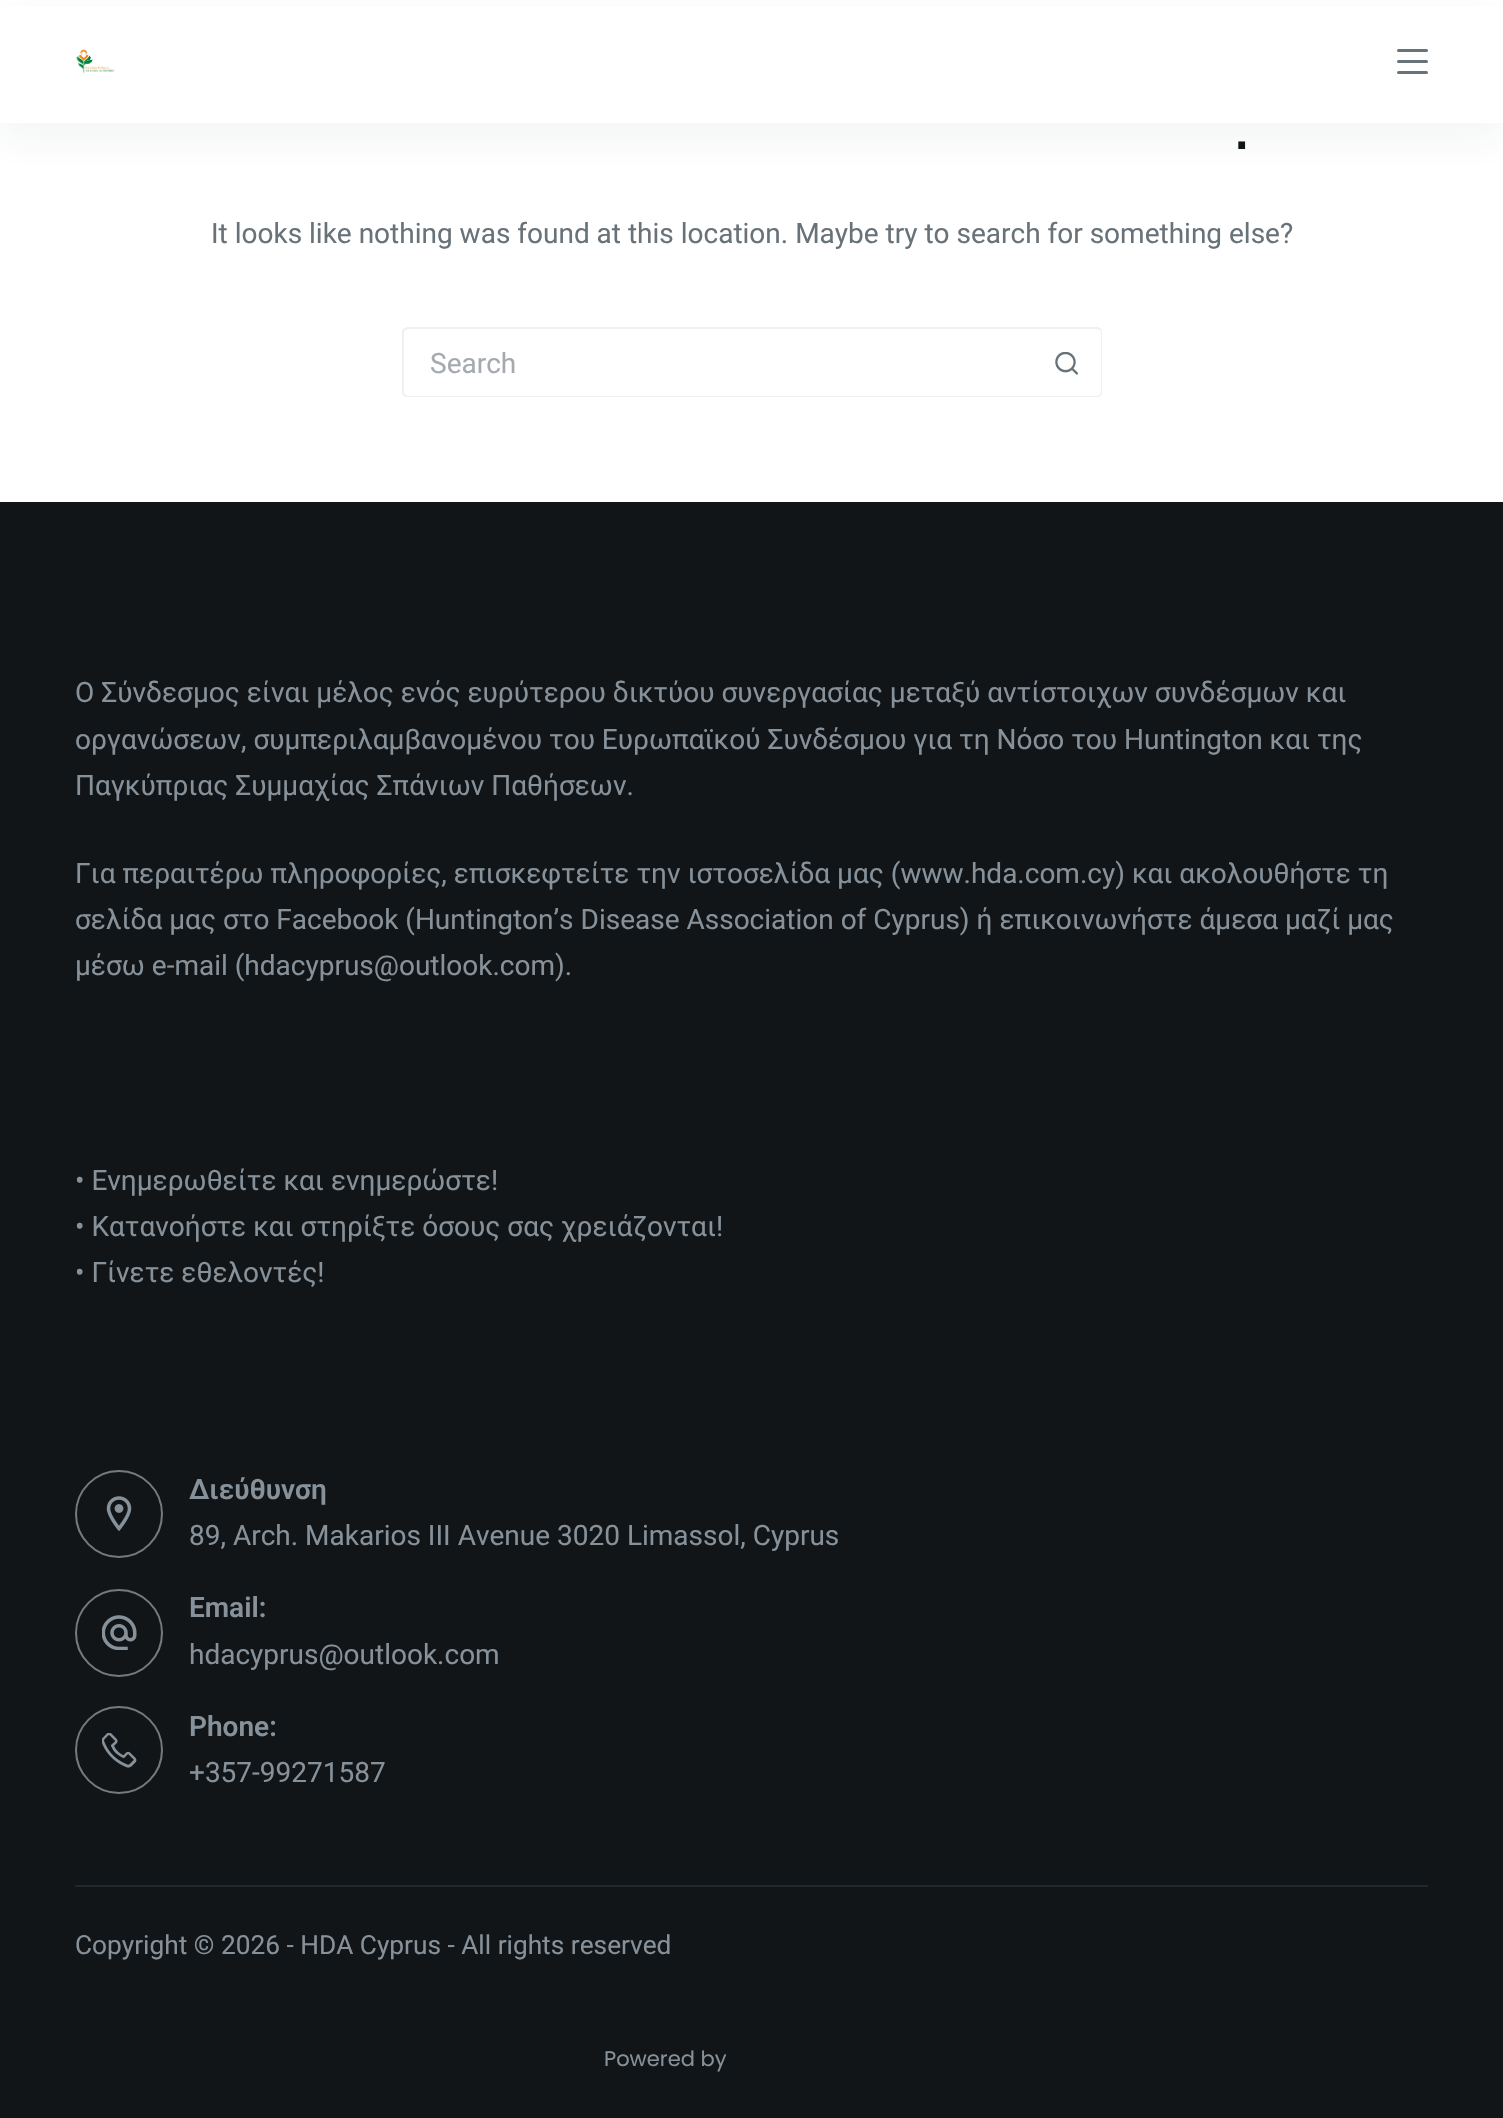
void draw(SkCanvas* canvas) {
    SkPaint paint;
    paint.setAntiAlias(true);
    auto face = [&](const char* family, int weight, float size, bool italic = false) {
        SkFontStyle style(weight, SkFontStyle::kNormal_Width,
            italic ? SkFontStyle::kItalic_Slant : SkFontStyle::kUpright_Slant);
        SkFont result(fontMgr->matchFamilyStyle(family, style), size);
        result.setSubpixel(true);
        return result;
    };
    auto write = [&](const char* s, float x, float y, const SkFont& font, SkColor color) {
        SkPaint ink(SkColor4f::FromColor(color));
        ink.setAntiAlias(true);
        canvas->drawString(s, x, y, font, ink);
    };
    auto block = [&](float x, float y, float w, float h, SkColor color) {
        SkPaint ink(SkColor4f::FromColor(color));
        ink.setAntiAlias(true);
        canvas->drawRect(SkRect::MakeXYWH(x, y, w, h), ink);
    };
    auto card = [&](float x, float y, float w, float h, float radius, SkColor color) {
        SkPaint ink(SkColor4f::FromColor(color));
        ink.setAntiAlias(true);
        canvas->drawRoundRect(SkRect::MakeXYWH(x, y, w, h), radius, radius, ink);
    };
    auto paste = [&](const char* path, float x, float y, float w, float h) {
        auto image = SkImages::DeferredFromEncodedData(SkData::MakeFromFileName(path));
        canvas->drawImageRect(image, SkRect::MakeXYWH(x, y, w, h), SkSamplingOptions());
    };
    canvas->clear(SK_ColorWHITE);
    paint.setColor(SkColorSetARGB(13, 43, 61, 79));
    paint.setMaskFilter(SkMaskFilter::MakeBlur(kNormal_SkBlurStyle, 17.5f));
    canvas->drawRect(SkRect::MakeXYWH(0, 18, 1503, 122), paint);
    paint.setMaskFilter(nullptr);
    block(0, 6, 1503, 117, SK_ColorWHITE);
    paste("pic1.png", 76, 49, 39, 25);
    card(1397, 49, 31, 3, 1.5f, SkColorSetRGB(104, 114, 121));
    card(1397, 60, 31, 3, 1.5f, SkColorSetRGB(104, 114, 121));
    card(1397, 71, 31, 3, 1.5f, SkColorSetRGB(104, 114, 121));
    auto kFont1 = face("Liberation Sans", 400, 70);
    write(".", 1232, 149, kFont1, SkColorSetRGB(17, 21, 24));
    auto kFont2 = face("Roboto", 400, 28);
    write("It looks like nothing was found at this location. Maybe try to search for something else?", 211, 243, kFont2, SkColorSetRGB(104, 114, 121));
    paint.setColor(SkColorSetRGB(237, 239, 242));
    canvas->drawPath(SkPathBuilder(SkPathFillType::kEvenOdd).moveTo(408, 327).lineTo(1032, 327).lineTo(1032, 397).lineTo(408, 397).cubicTo(405, 397, 402, 395, 402, 392).lineTo(402, 332).cubicTo(402, 330, 405, 327, 408, 327).close().moveTo(408, 329).lineTo(1032, 329).lineTo(1032, 396).lineTo(408, 396).cubicTo(406, 396, 404, 394, 404, 392).lineTo(404, 332).cubicTo(404, 331, 406, 329, 408, 329).close().detach(), paint);
    write("Search", 430, 373, kFont2, SkColorSetRGB(164, 170, 175));
    canvas->drawPath(SkPathBuilder(SkPathFillType::kEvenOdd).moveTo(1032, 327).lineTo(1097, 327).cubicTo(1100, 327, 1102, 330, 1102, 332).lineTo(1102, 392).cubicTo(1102, 395, 1100, 397, 1097, 397).lineTo(1032, 397).close().moveTo(1032, 329).lineTo(1097, 329).cubicTo(1099, 329, 1101, 331, 1101, 332).lineTo(1101, 392).cubicTo(1101, 394, 1099, 396, 1097, 396).lineTo(1032, 396).close().detach(), paint);
    paste("pic2.png", 1055, 352, 23, 23);
    block(0, 502, 1503, 1616, SkColorSetRGB(17, 21, 24));
    write("Ο Σύνδεσμος είναι μέλος ενός ευρύτερου δικτύου συνεργασίας μεταξύ αντίστοιχων συνδέσμων και", 75, 702, kFont2, SkColorSetRGB(134, 145, 154));
    write("οργανώσεων, συμπεριλαμβανομένου του Ευρωπαϊκού Συνδέσμου για τη Νόσο του Huntington και της", 75, 749, kFont2, SkColorSetRGB(134, 145, 154));
    write("Παγκύπριας Συμμαχίας Σπάνιων Παθήσεων.", 75, 795, kFont2, SkColorSetRGB(134, 145, 154));
    write("Για περαιτέρω πληροφορίες, επισκεφτείτε την ιστοσελίδα μας (www.hda.com.cy) και ακολουθήστε τη", 75, 883, kFont2, SkColorSetRGB(134, 145, 154));
    write("σελίδα μας στο Facebook (Huntington’s Disease Association of Cyprus) ή επικοινωνήστε άμεσα μαζί μας", 75, 929, kFont2, SkColorSetRGB(134, 145, 154));
    write("μέσω e-mail (hdacyprus@outlook.com).", 75, 975, kFont2, SkColorSetRGB(134, 145, 154));
    write("• Ενημερωθείτε και ενημερώστε!", 75, 1190, kFont2, SkColorSetRGB(134, 145, 154));
    write("• Κατανοήστε και στηρίξτε όσους σας χρειάζονται!", 75, 1236, kFont2, SkColorSetRGB(134, 145, 154));
    write("• Γίνετε εθελοντές!", 75, 1282, kFont2, SkColorSetRGB(134, 145, 154));
    paint.setStyle(SkPaint::kStroke_Style);
    paint.setStrokeWidth(2);
    paint.setColor(SkColorSetRGB(118, 122, 126));
    canvas->drawCircle(119, 1514, 43, paint);
    paste("pic3.png", 106, 1496, 26, 35);
    auto kFont3 = face("Roboto", 600, 28);
    write("Διεύθυνση", 189, 1499, kFont3, SkColorSetRGB(134, 145, 154));
    write("89, Arch. Makarios III Avenue 3020 Limassol, Cyprus", 189, 1545, kFont2, SkColorSetRGB(134, 145, 154));
    canvas->drawCircle(119, 1633, 43, paint);
    paste("pic4.png", 102, 1615, 35, 35);
    write("Email:", 189, 1617, kFont3, SkColorSetRGB(134, 145, 154));
    write("hdacyprus@outlook.com", 189, 1664, kFont2, SkColorSetRGB(134, 145, 154));
    canvas->drawCircle(119, 1750, 43, paint);
    paste("pic5.png", 102, 1733, 35, 35);
    write("Phone:", 189, 1736, kFont3, SkColorSetRGB(134, 145, 154));
    write("+357-99271587", 189, 1782, kFont2, SkColorSetRGB(134, 145, 154));
    block(75, 1885, 1353, 2, SkColorSetRGB(32, 40, 46));
    auto kFont4 = face("Roboto", 400, 26.25f);
    write("Copyright © 2026 - HDA Cyprus - All rights reserved", 75, 1954, kFont4, SkColorSetRGB(134, 145, 154));
    auto kFont5 = face("Poppins", 400, 21);
    write("Powered by", 604, 2066, kFont5, SkColorSetRGB(134, 145, 154));
}
